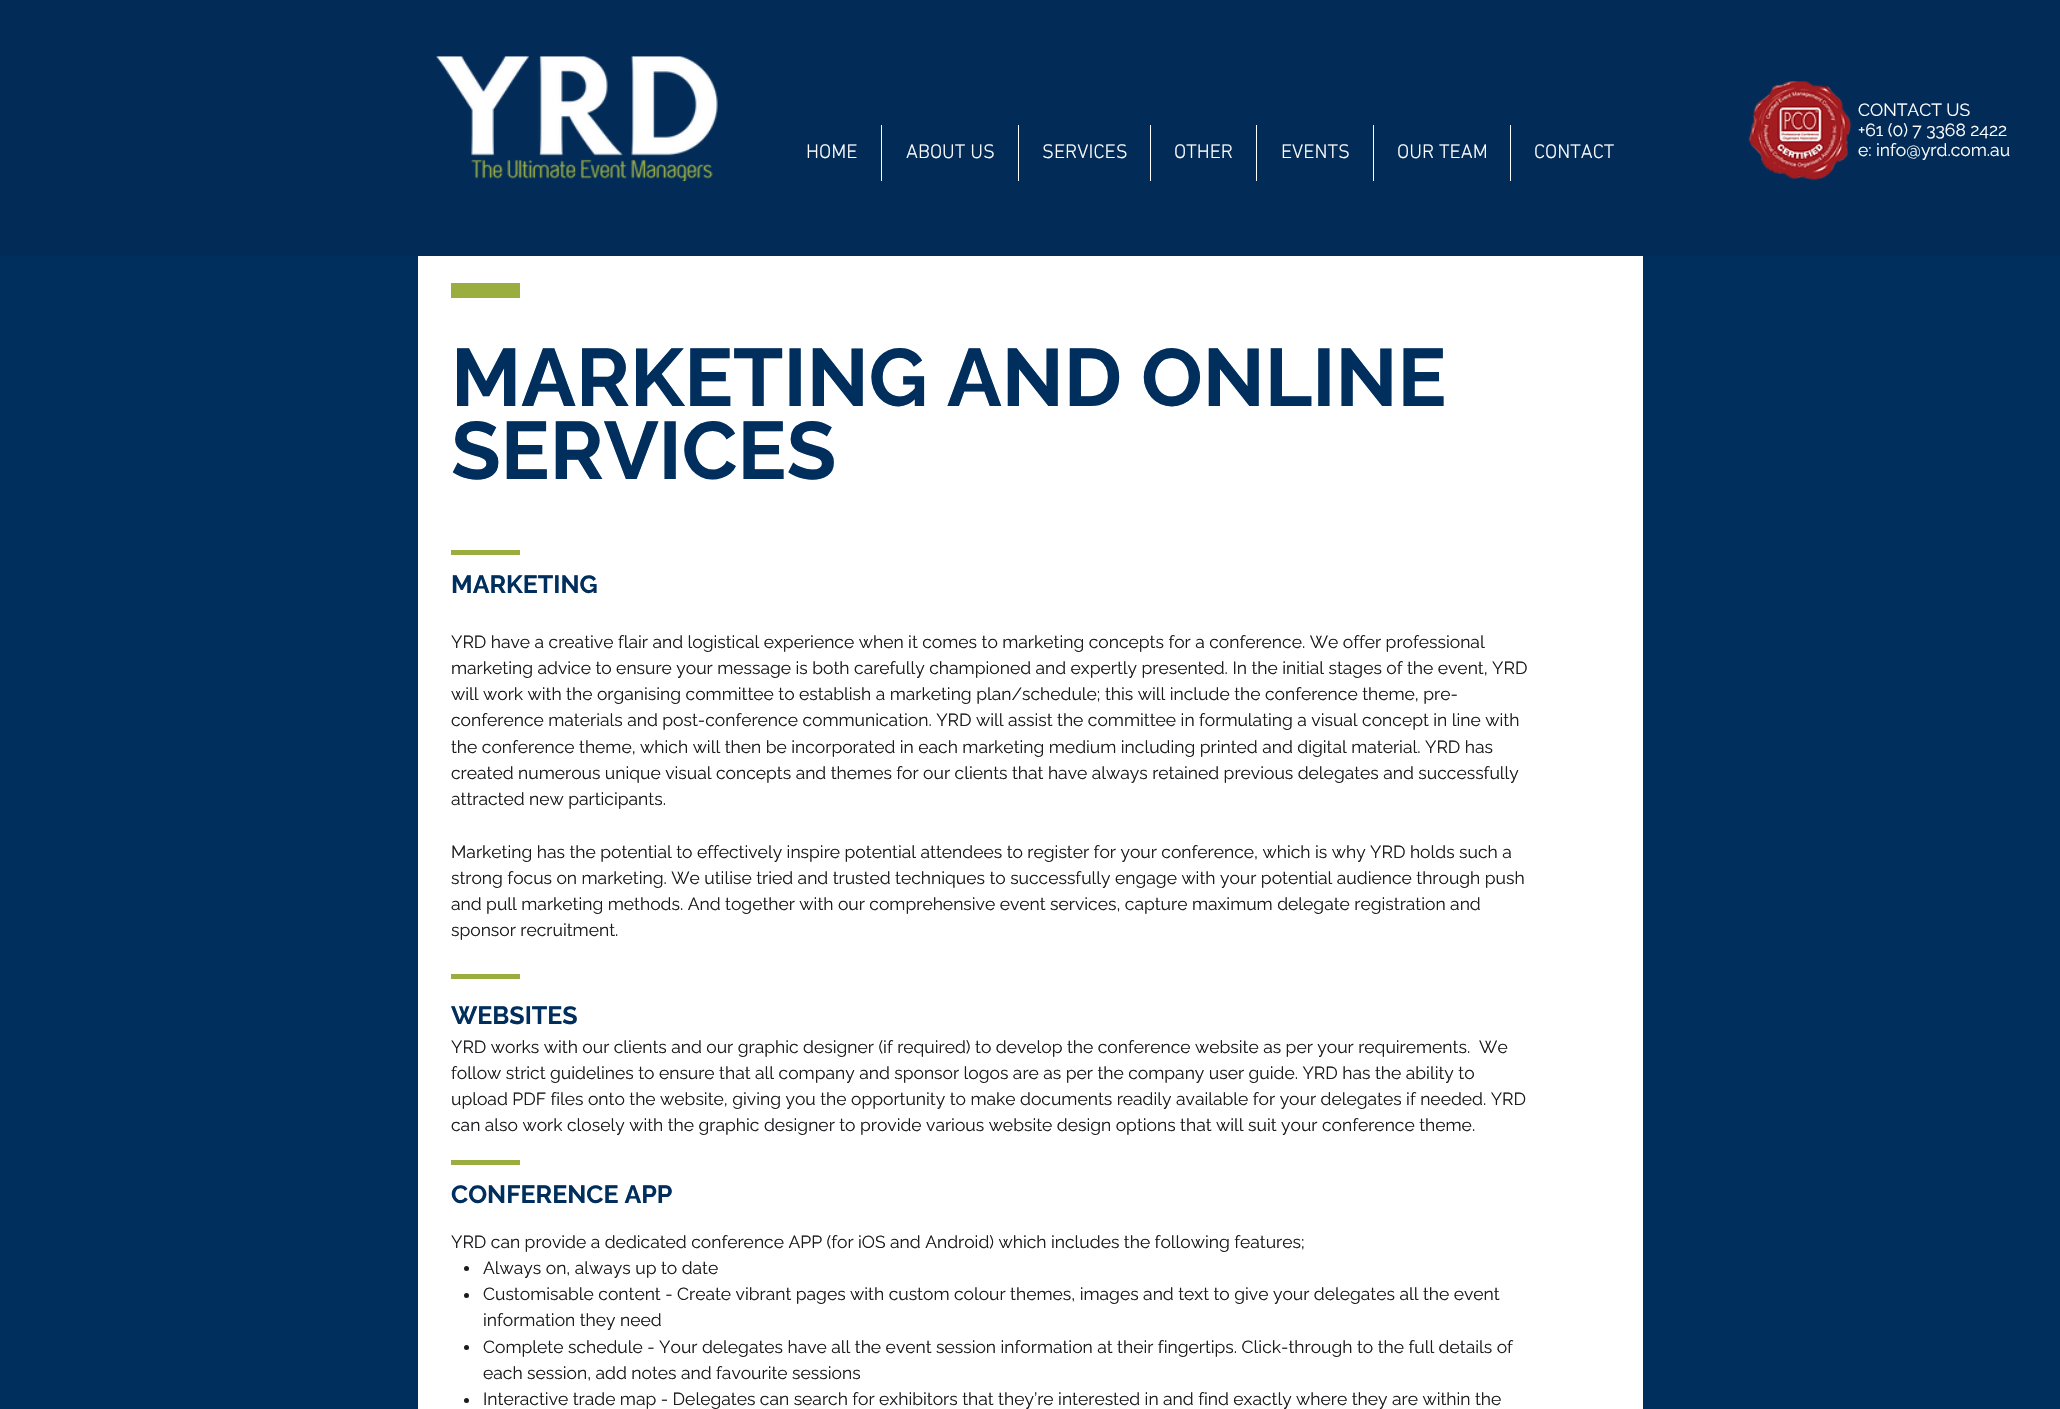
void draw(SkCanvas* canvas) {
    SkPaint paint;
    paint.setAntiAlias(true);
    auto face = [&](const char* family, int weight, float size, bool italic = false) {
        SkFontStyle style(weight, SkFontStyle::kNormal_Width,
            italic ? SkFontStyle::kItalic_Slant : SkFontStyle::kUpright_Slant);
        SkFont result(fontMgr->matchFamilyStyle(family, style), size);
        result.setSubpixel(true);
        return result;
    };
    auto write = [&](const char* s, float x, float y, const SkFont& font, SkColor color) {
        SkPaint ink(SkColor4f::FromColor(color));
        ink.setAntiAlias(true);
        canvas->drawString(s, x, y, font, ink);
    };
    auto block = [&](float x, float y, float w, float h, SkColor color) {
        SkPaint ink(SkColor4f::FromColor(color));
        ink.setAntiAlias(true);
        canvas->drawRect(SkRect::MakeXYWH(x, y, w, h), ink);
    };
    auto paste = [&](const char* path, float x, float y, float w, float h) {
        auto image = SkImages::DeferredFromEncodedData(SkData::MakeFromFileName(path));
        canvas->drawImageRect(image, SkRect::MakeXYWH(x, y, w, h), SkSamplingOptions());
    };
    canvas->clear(SkColorSetRGB(0, 46, 93));
    block(0, 0, 2060, 256, SkColorSetRGB(2, 44, 87));
    paste("pic1.png", 436, 56, 282, 126);
    auto kFont1 = face("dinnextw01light", 300, 20);
    write("HOME", 806, 158, kFont1, SK_ColorWHITE);
    block(881, 125, 1, 56, SK_ColorWHITE);
    write("ABOUT US", 906, 158, kFont1, SK_ColorWHITE);
    block(1018, 125, 1, 56, SK_ColorWHITE);
    write("SERVICES", 1042, 158, kFont1, SK_ColorWHITE);
    block(1150, 125, 1, 56, SK_ColorWHITE);
    write("OTHER", 1174, 158, kFont1, SK_ColorWHITE);
    block(1256, 125, 1, 56, SK_ColorWHITE);
    write("EVENTS", 1281, 158, kFont1, SK_ColorWHITE);
    block(1373, 125, 1, 56, SK_ColorWHITE);
    write("OUR TEAM", 1397, 158, kFont1, SK_ColorWHITE);
    block(1510, 125, 1, 56, SK_ColorWHITE);
    write("CONTACT", 1534, 158, kFont1, SK_ColorWHITE);
    paste("pic2.png", 1748, 81, 104, 100);
    auto kFont2 = face("Raleway", 400, 17.5f);
    write("CONTACT US", 1858, 116, kFont2, SK_ColorWHITE);
    write("+61 (0) 7 3368 2422", 1858, 136, kFont2, SK_ColorWHITE);
    write("e: info@yrd.com.au", 1858, 156, kFont2, SK_ColorWHITE);
    block(418, 256, 1225, 1153, SK_ColorWHITE);
    block(451, 283, 69, 15, SkColorSetRGB(154, 174, 63));
    auto kFont3 = face("Raleway", 700, 81.25f);
    write("MARKETING AND ONLINE", 451, 406, kFont3, SkColorSetRGB(0, 46, 93));
    write("SERVICES", 451, 479, kFont3, SkColorSetRGB(0, 46, 93));
    block(451, 550, 69, 5, SkColorSetRGB(154, 174, 63));
    auto kFont4 = face("Raleway", 700, 25);
    write("MARKETING", 451, 593, kFont4, SkColorSetRGB(0, 46, 93));
    write("YRD have a creative flair and logistical experience when it comes to marketing concepts for a conference. We offer professional", 451, 648, kFont2, SkColorSetRGB(27, 27, 30));
    write("marketing advice to ensure your message is both carefully championed and expertly presented. In the initial stages of the event, YRD", 451, 674, kFont2, SkColorSetRGB(27, 27, 30));
    write("will work with the organising committee to establish a marketing plan/schedule; this will include the conference theme, pre-", 451, 700, kFont2, SkColorSetRGB(27, 27, 30));
    write("conference materials and post-conference communication. YRD will assist the committee in formulating a visual concept in line with", 451, 726, kFont2, SkColorSetRGB(27, 27, 30));
    write("the conference theme, which will then be incorporated in each marketing medium including printed and digital material. YRD has", 451, 753, kFont2, SkColorSetRGB(27, 27, 30));
    write("created numerous unique visual concepts and themes for our clients that have always retained previous delegates and successfully", 451, 779, kFont2, SkColorSetRGB(27, 27, 30));
    write("attracted new participants.", 451, 805, kFont2, SkColorSetRGB(27, 27, 30));
    write("Marketing has the potential to effectively inspire potential attendees to register for your conference, which is why YRD holds such a", 451, 858, kFont2, SkColorSetRGB(27, 27, 30));
    write("strong focus on marketing. We utilise tried and trusted techniques to successfully engage with your potential audience through push", 451, 884, kFont2, SkColorSetRGB(27, 27, 30));
    write("and pull marketing methods. And together with our comprehensive event services, capture maximum delegate registration and", 451, 910, kFont2, SkColorSetRGB(27, 27, 30));
    write("sponsor recruitment.", 451, 936, kFont2, SkColorSetRGB(27, 27, 30));
    block(451, 974, 69, 5, SkColorSetRGB(154, 174, 63));
    write("WEBSITES", 451, 1024, kFont4, SkColorSetRGB(0, 46, 93));
    write("YRD works with our clients and our graphic designer (if required) to develop the conference website as per your requirements.  We", 451, 1053, kFont2, SkColorSetRGB(27, 27, 30));
    write("follow strict guidelines to ensure that all company and sponsor logos are as per the company user guide. YRD has the ability to", 451, 1079, kFont2, SkColorSetRGB(27, 27, 30));
    write("upload PDF files onto the website, giving you the opportunity to make documents readily available for your delegates if needed. YRD", 451, 1105, kFont2, SkColorSetRGB(27, 27, 30));
    write("can also work closely with the graphic designer to provide various website design options that will suit your conference theme.", 451, 1131, kFont2, SkColorSetRGB(27, 27, 30));
    write("CONFERENCE APP", 451, 1203, kFont4, SkColorSetRGB(0, 46, 93));
    write("YRD can provide a dedicated conference APP (for iOS and Android) which includes the following features;", 451, 1248, kFont2, SkColorSetRGB(27, 27, 30));
    paint.setColor(SkColorSetRGB(27, 27, 30));
    canvas->drawCircle(466.5f, 1268.5f, 2.5f, paint);
    write("Always on, always up to date", 483, 1274, kFont2, SkColorSetRGB(27, 27, 30));
    canvas->drawCircle(466.5f, 1295.5f, 2.5f, paint);
    write("Customisable content - Create vibrant pages with custom colour themes, images and text to give your delegates all the event", 483, 1300, kFont2, SkColorSetRGB(27, 27, 30));
    write("information they need", 483, 1326, kFont2, SkColorSetRGB(27, 27, 30));
    canvas->drawCircle(466.5f, 1347.5f, 2.5f, paint);
    write("Complete schedule - Your delegates have all the event session information at their fingertips. Click-through to the full details of", 483, 1353, kFont2, SkColorSetRGB(27, 27, 30));
    write("each session, add notes and favourite sessions", 483, 1379, kFont2, SkColorSetRGB(27, 27, 30));
    canvas->drawCircle(466.5f, 1400.5f, 2.5f, paint);
    write("Interactive trade map - Delegates can search for exhibitors that they’re interested in and find exactly where they are within the", 483, 1405, kFont2, SkColorSetRGB(27, 27, 30));
    block(451, 1160, 69, 5, SkColorSetRGB(154, 174, 63));
}
